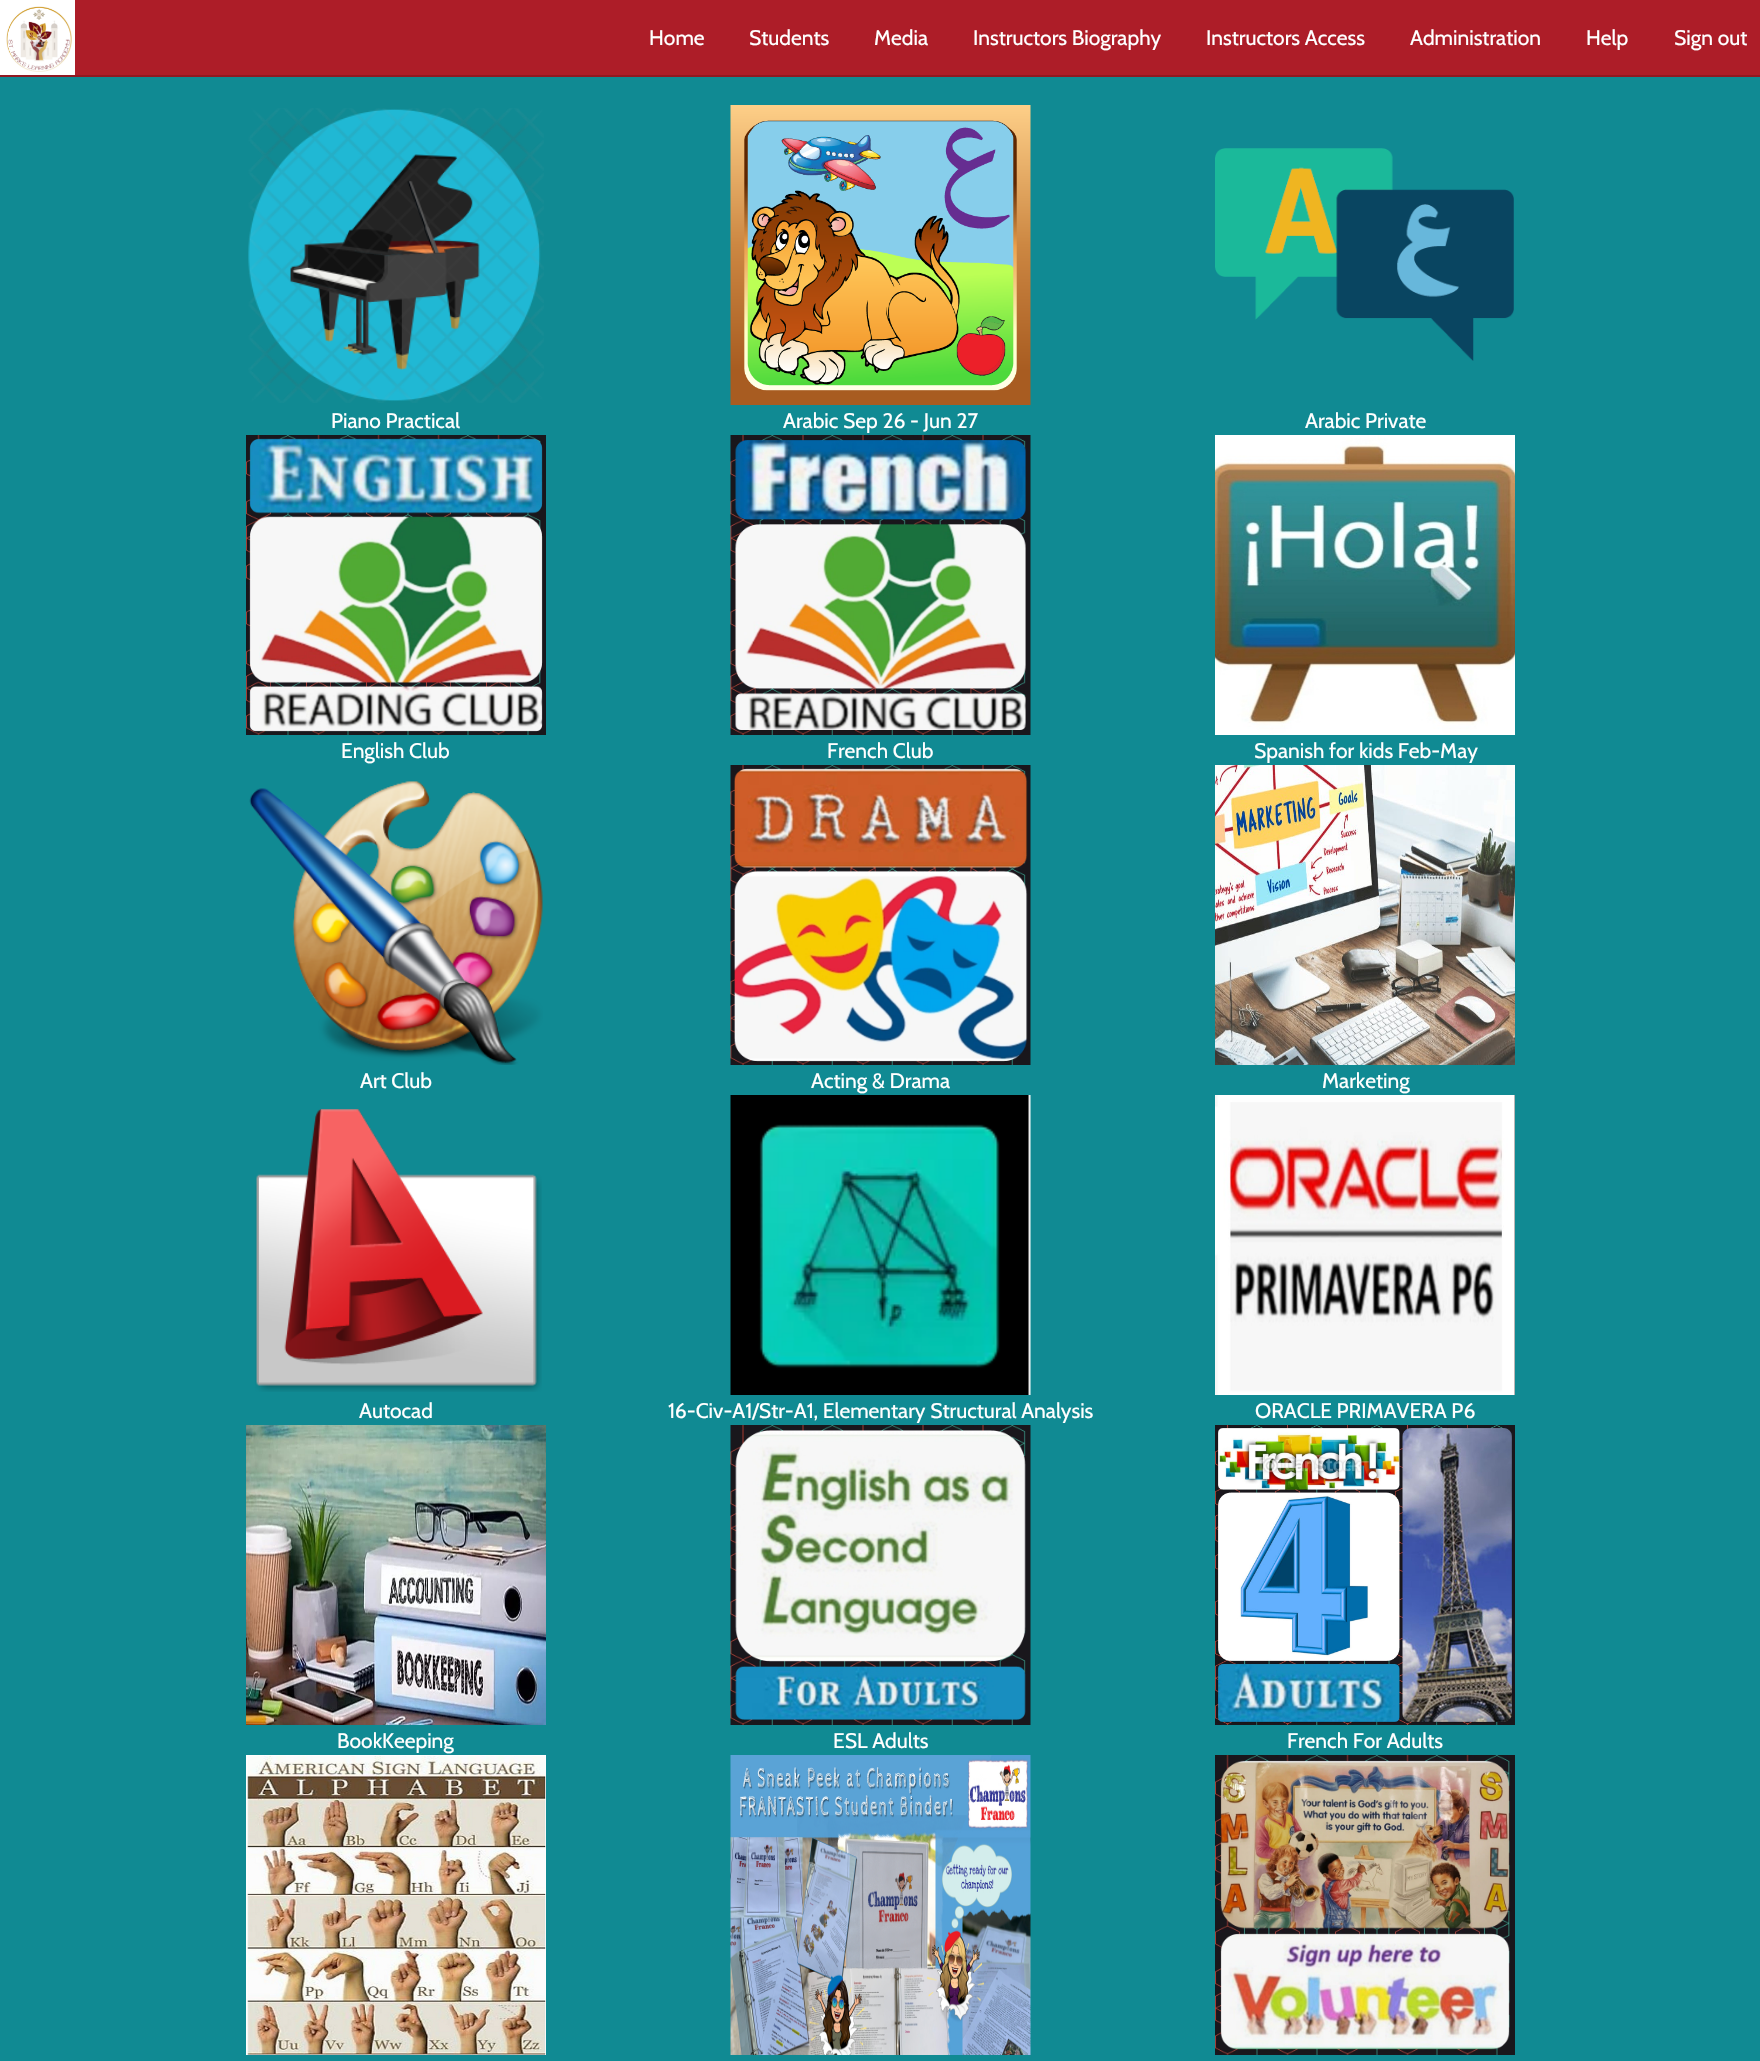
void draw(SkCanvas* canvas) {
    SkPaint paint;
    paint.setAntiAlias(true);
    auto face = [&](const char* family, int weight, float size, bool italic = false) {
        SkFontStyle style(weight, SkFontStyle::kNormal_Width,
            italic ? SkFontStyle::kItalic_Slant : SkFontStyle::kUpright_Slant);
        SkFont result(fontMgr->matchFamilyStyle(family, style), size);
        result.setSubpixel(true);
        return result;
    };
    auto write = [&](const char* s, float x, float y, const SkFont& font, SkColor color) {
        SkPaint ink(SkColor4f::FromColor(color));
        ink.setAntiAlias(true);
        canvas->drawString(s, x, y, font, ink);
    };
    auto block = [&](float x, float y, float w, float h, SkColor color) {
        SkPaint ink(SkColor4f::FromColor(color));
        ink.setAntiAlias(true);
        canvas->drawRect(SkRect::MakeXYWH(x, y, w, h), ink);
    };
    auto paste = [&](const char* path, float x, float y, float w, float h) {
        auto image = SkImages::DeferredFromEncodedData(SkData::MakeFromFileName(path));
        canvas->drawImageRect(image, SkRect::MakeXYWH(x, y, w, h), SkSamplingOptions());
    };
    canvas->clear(SkColorSetRGB(16, 138, 147));
    block(75, 0, 1685, 75, SkColorSetRGB(173, 29, 40));
    block(0, 75, 1760, 2, SkColorSetRGB(145, 24, 33));
    paste("pic1.png", 0, 0, 75, 75);
    auto kFont1 = face("Cabin", 400, 21);
    write("Home", 649, 45, kFont1, SK_ColorWHITE);
    write("Students", 749, 45, kFont1, SK_ColorWHITE);
    write("Media", 874, 45, kFont1, SK_ColorWHITE);
    write("Instructors Biography", 973, 45, kFont1, SK_ColorWHITE);
    write("Instructors Access", 1206, 45, kFont1, SK_ColorWHITE);
    write("Administration", 1410, 45, kFont1, SK_ColorWHITE);
    write("Help", 1586, 45, kFont1, SK_ColorWHITE);
    write("Sign out", 1674, 45, kFont1, SK_ColorWHITE);
    paste("pic2.png", 248, 108, 296, 295);
    write("Piano Practical", 331, 428, kFont1, SK_ColorWHITE);
    paste("pic3.png", 730, 105, 301, 300);
    write("Arabic Sep 26 - Jun 27", 783, 428, kFont1, SK_ColorWHITE);
    paste("pic4.png", 1215, 148, 299, 213);
    write("Arabic Private", 1305, 428, kFont1, SK_ColorWHITE);
    paste("pic5.png", 246, 435, 300, 300);
    write("English Club", 341, 758, kFont1, SK_ColorWHITE);
    paste("pic6.png", 730, 435, 301, 300);
    write("French Club", 827, 758, kFont1, SK_ColorWHITE);
    paste("pic7.png", 1215, 435, 300, 300);
    write("Spanish for kids Feb-May", 1254, 758, kFont1, SK_ColorWHITE);
    paste("pic8.png", 249, 781, 294, 284);
    write("Art Club", 360, 1088, kFont1, SK_ColorWHITE);
    paste("pic9.png", 730, 765, 301, 300);
    write("Acting & Drama", 811, 1088, kFont1, SK_ColorWHITE);
    paste("pic10.png", 1215, 765, 300, 300);
    write("Marketing", 1322, 1088, kFont1, SK_ColorWHITE);
    paste("pic11.png", 255, 1109, 287, 283);
    write("Autocad", 359, 1418, kFont1, SK_ColorWHITE);
    paste("pic12.png", 730, 1095, 301, 300);
    write("16-Civ-A1/Str-A1, Elementary Structural Analysis", 668, 1418, kFont1, SK_ColorWHITE);
    paste("pic13.png", 1215, 1095, 300, 300);
    write("ORACLE PRIMAVERA P6", 1255, 1418, kFont1, SK_ColorWHITE);
    paste("pic14.png", 246, 1425, 300, 300);
    write("BookKeeping", 337, 1748, kFont1, SK_ColorWHITE);
    paste("pic15.png", 730, 1425, 301, 300);
    write("ESL Adults", 833, 1748, kFont1, SK_ColorWHITE);
    paste("pic16.png", 1215, 1425, 300, 300);
    write("French For Adults", 1287, 1748, kFont1, SK_ColorWHITE);
    paste("pic17.png", 246, 1755, 300, 300);
    paste("pic18.png", 730, 1755, 301, 300);
    paste("pic19.png", 1215, 1755, 300, 300);
}
